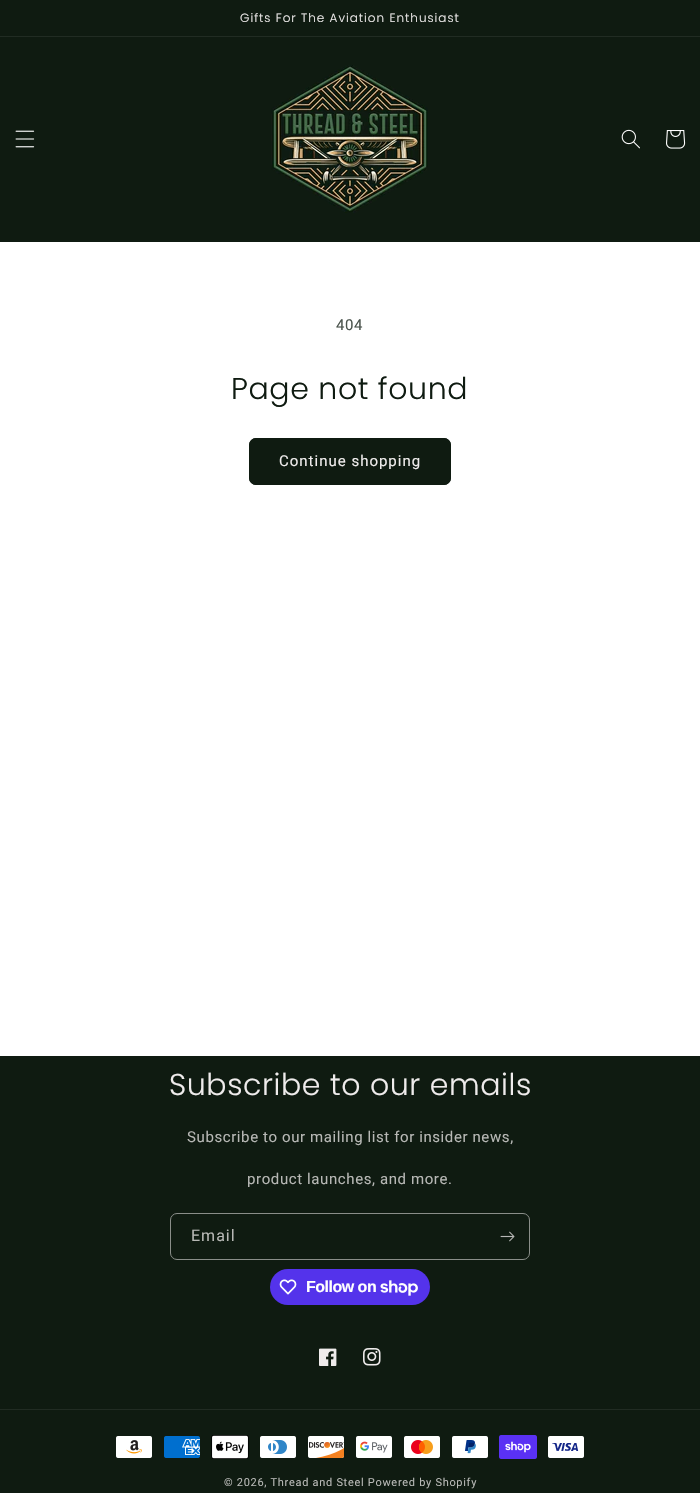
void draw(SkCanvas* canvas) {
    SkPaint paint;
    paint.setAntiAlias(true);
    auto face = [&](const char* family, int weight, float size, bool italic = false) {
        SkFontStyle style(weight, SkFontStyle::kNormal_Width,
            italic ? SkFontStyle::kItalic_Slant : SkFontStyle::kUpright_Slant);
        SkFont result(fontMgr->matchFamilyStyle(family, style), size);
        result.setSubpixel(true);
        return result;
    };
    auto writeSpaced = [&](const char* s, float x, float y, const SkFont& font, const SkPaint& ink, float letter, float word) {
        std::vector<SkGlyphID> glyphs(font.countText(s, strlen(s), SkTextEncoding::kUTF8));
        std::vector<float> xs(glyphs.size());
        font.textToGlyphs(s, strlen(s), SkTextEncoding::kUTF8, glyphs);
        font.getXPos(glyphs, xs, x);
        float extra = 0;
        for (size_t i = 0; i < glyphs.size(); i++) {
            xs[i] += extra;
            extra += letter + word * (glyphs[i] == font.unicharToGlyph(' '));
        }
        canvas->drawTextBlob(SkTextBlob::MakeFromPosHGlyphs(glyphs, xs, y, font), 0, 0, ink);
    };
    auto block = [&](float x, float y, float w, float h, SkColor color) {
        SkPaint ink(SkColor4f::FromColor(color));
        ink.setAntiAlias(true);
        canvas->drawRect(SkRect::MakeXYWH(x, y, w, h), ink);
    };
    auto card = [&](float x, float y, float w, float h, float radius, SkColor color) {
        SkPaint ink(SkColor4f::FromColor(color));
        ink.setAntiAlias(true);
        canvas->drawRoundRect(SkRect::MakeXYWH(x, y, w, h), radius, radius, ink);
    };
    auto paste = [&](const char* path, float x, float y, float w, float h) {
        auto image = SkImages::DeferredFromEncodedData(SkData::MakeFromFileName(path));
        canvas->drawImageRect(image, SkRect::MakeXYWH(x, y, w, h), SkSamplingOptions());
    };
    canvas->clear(SK_ColorWHITE);
    block(0, 0, 700, 36, SkColorSetRGB(15, 27, 17));
    block(0, 36, 700, 1, SkColorSetRGB(33, 44, 35));
    auto kFont1 = face("Poppins", 300, 12);
    paint.setColor(SkColorSetRGB(239, 236, 236));
    writeSpaced("Gifts For The Aviation Enthusiast", 240, 22, kFont1, paint, 1, 0);
    block(0, 37, 700, 205, SkColorSetRGB(15, 27, 17));
    paste("pic1.png", 15, 130, 20, 18);
    paste("pic2.png", 271, 65, 157, 148);
    paste("pic3.png", 621, 129, 19, 20);
    paste("pic4.png", 666, 130, 20, 19);
    auto kFont2 = face("Roboto", 400, 15);
    paint.setColor(SkColorSetRGB(75, 84, 77));
    writeSpaced("404", 336, 330, kFont2, paint, 0.6f, 0);
    auto kFont3 = face("Poppins", 300, 30);
    paint.setColor(SkColorSetRGB(15, 27, 17));
    writeSpaced("Page not found", 231, 399, kFont3, paint, 0.6f, 0);
    card(249, 438, 202, 47, 7, SkColorSetRGB(15, 27, 17));
    paint.setStyle(SkPaint::kStroke_Style);
    paint.setStrokeWidth(1);
    canvas->drawRoundRect(SkRect::MakeXYWH(249.5f, 438.5f, 201, 46), 6.5f, 6.5f, paint);
    paint.setStyle(SkPaint::kFill_Style);
    paint.setColor(SkColorSetRGB(239, 236, 236));
    writeSpaced("Continue shopping", 279, 466, kFont2, paint, 1, 0);
    block(0, 1056, 700, 437, SkColorSetRGB(15, 27, 17));
    writeSpaced("Subscribe to our emails", 169, 1095, kFont3, paint, 0.6f, 0);
    paint.setColor(SkColorSetRGB(183, 184, 181));
    writeSpaced("Subscribe to our mailing list for insider news,", 187, 1142, kFont2, paint, 0.6f, 0);
    writeSpaced("product launches, and more.", 247, 1184, kFont2, paint, 0.6f, 0);
    paint.setStyle(SkPaint::kStroke_Style);
    paint.setColor(SkColorSetRGB(138, 142, 137));
    canvas->drawRoundRect(SkRect::MakeXYWH(170.5f, 1213.5f, 359, 46), 6.5f, 6.5f, paint);
    auto kFont4 = face("Roboto", 400, 16);
    paint.setStyle(SkPaint::kFill_Style);
    paint.setColor(SkColorSetRGB(183, 184, 181));
    writeSpaced("Email", 191, 1241, kFont4, paint, 1, 0);
    paste("pic5.png", 500, 1231, 15, 11);
    card(270, 1269, 160, 36, 18, SkColorSetRGB(84, 51, 235));
    paste("pic6.png", 279, 1279, 18, 16);
    auto kFont5 = face("Liberation Sans", 700, 16);
    paint.setColor(SK_ColorWHITE);
    writeSpaced("Follow on", 306, 1292, kFont5, paint, -0.5f, 0);
    paste("pic7.png", 380, 1280, 38, 16);
    paste("pic8.png", 319, 1348, 18, 18);
    paste("pic9.png", 363, 1348, 18, 18);
    block(0, 1409, 700, 1, SkColorSetRGB(33, 44, 35));
    paste("pic10.png", 116, 1436, 36, 22);
    paste("pic11.png", 164, 1436, 36, 22);
    paste("pic12.png", 211, 1435, 38, 24);
    paste("pic13.png", 260, 1436, 36, 22);
    paste("pic14.png", 308, 1436, 36, 22);
    paste("pic15.png", 356, 1436, 36, 22);
    paste("pic16.png", 404, 1436, 36, 22);
    paste("pic17.png", 452, 1436, 36, 22);
    paste("pic18.png", 499, 1435, 38, 24);
    paste("pic19.png", 548, 1436, 36, 22);
    auto kFont6 = face("Roboto", 400, 11);
    paint.setColor(SkColorSetRGB(183, 184, 181));
    writeSpaced("© 2026, Thread and Steel Powered by Shopify", 224, 1486, kFont6, paint, 0.7f, 0);
}
